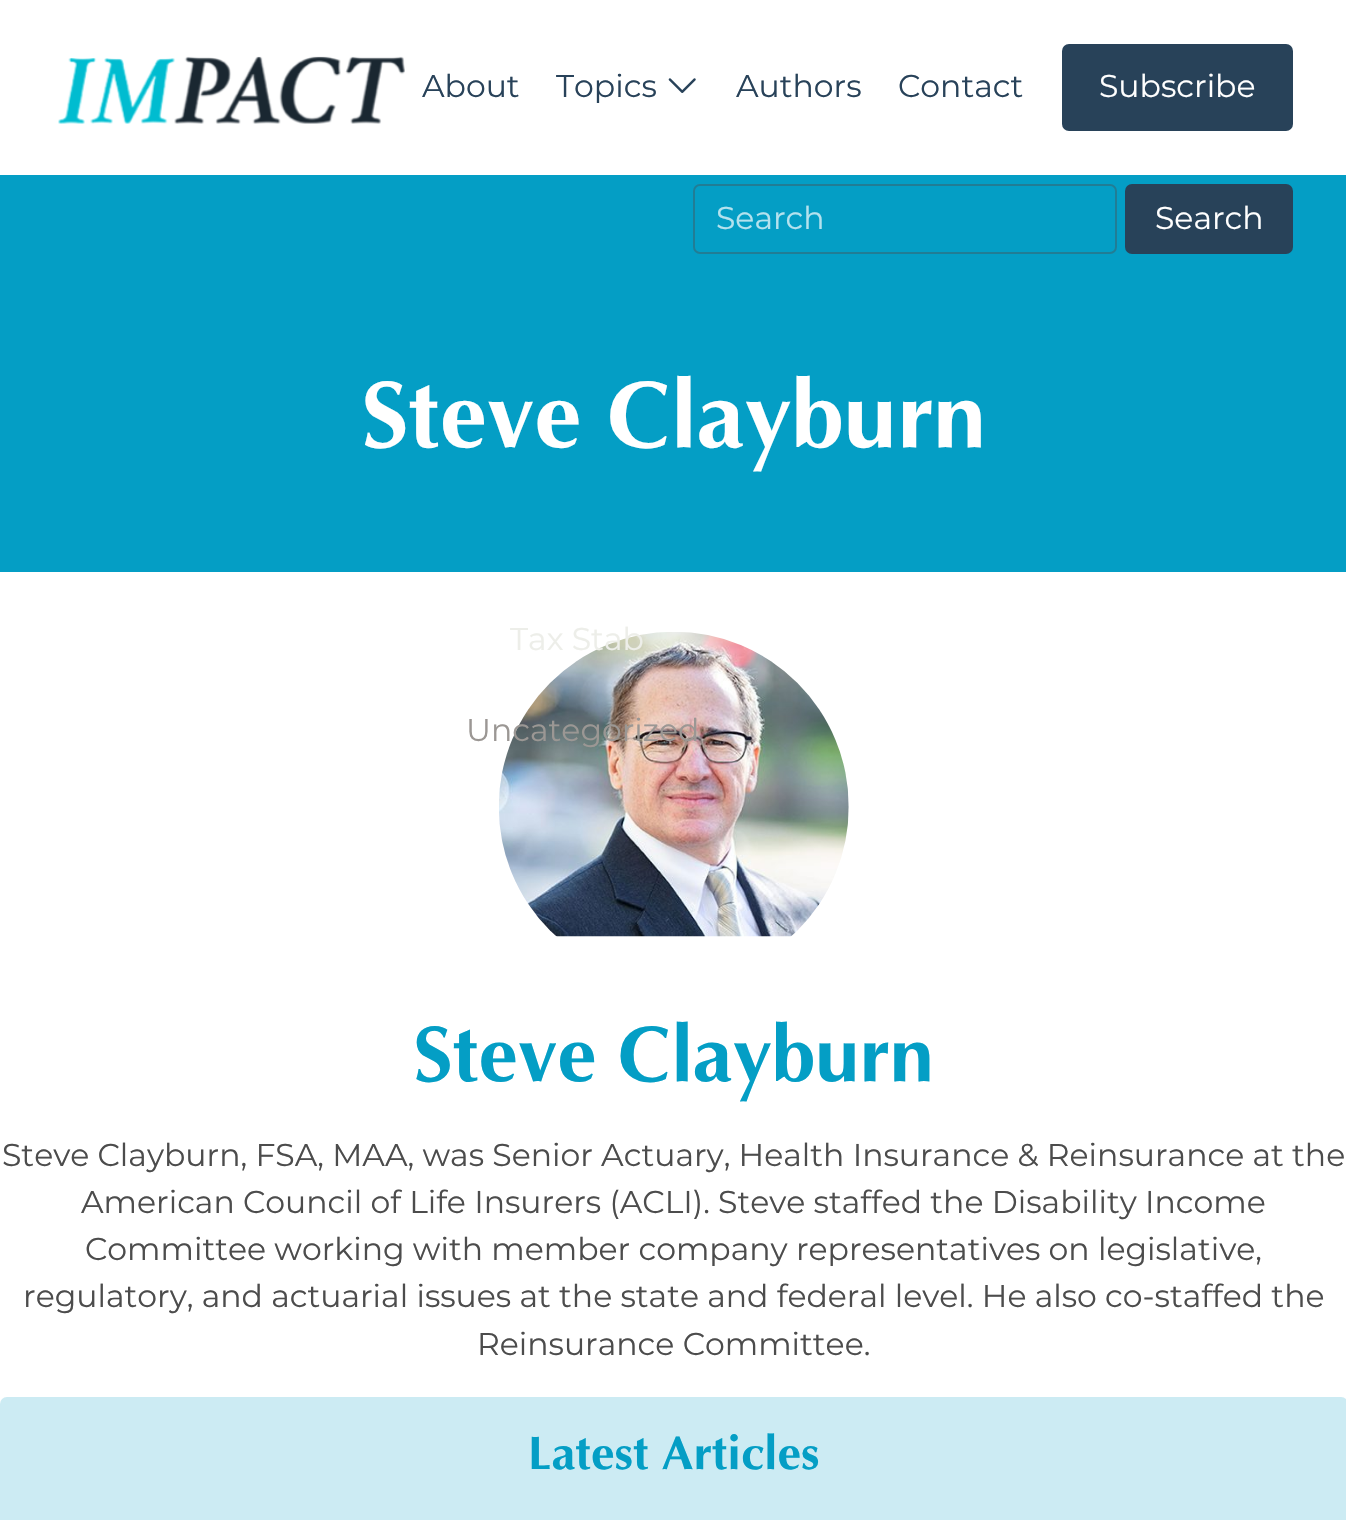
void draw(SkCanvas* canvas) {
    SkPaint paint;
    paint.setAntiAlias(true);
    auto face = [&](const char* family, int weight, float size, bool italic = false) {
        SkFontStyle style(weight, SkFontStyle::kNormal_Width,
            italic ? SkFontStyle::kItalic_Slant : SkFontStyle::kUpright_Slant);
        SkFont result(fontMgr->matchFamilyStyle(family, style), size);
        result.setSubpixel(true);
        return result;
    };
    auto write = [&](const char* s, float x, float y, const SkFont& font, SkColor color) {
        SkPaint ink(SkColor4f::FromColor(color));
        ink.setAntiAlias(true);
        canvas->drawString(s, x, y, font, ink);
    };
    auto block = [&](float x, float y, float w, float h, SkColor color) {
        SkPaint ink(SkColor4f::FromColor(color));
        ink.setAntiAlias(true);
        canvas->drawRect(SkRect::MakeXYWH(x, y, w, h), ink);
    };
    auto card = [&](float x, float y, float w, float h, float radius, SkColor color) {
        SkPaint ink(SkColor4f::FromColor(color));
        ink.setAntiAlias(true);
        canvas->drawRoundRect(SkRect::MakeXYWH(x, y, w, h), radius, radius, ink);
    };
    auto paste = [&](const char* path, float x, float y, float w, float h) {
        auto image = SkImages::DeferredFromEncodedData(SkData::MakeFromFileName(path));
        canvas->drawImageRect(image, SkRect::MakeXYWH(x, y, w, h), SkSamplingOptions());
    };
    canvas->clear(SK_ColorWHITE);
    paste("pic1.png", 58, 56, 347, 68);
    auto kFont1 = face("Montserrat", 100, 31.5f);
    write("About", 422, 97, kFont1, SkColorSetRGB(40, 66, 89));
    write("Topics", 556, 97, kFont1, SkColorSetRGB(40, 66, 89));
    paste("pic2.png", 668, 78, 28, 15);
    paste("pic3.png", 499, 632, 350, 305);
    write("Tax Stab", 510, 650, kFont1, SkColorSetRGB(237, 238, 233));
    write("Uncategorized", 466, 741, kFont1, SkColorSetRGB(155, 151, 148));
    write("Authors", 736, 97, kFont1, SkColorSetRGB(40, 66, 89));
    write("Contact", 898, 97, kFont1, SkColorSetRGB(40, 66, 89));
    card(1062, 44, 231, 87, 7, SkColorSetRGB(40, 66, 89));
    write("Subscribe", 1099, 97, kFont1, SK_ColorWHITE);
    block(0, 175, 1346, 397, SkColorSetRGB(4, 158, 197));
    paint.setStyle(SkPaint::kStroke_Style);
    paint.setStrokeWidth(2);
    paint.setColor(SkColorSetRGB(33, 125, 149));
    canvas->drawRoundRect(SkRect::MakeXYWH(694, 185, 422, 68), 6, 6, paint);
    write("Search", 716, 229, kFont1, SkColorSetRGB(180, 226, 238));
    card(1125, 184, 168, 70, 7, SkColorSetRGB(40, 66, 89));
    write("Search", 1155, 229, kFont1, SK_ColorWHITE);
    auto kFont2 = face("Optima", 700, 94.5f);
    write("Steve Clayburn", 361, 447, kFont2, SK_ColorWHITE);
    auto kFont3 = face("Optima", 700, 78.75f);
    write("Steve Clayburn", 413, 1081, kFont3, SkColorSetRGB(4, 158, 197));
    write("Steve Clayburn, FSA, MAA, was Senior Actuary, Health Insurance & Reinsurance at the", 2, 1166, kFont1, SkColorSetRGB(76, 76, 76));
    write("American Council of Life Insurers (ACLI). Steve staffed the Disability Income", 81, 1213, kFont1, SkColorSetRGB(76, 76, 76));
    write("Committee working with member company representatives on legislative,", 85, 1260, kFont1, SkColorSetRGB(76, 76, 76));
    write("regulatory, and actuarial issues at the state and federal level. He also co-staffed the", 23, 1307, kFont1, SkColorSetRGB(76, 76, 76));
    write("Reinsurance Committee.", 477, 1355, kFont1, SkColorSetRGB(76, 76, 76));
    card(0, 1397, 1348, 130, 7, SkColorSetRGB(204, 235, 243));
    auto kFont4 = face("Optima", 700, 47.25f);
    write("Latest Articles", 528, 1469, kFont4, SkColorSetRGB(4, 158, 197));
}
